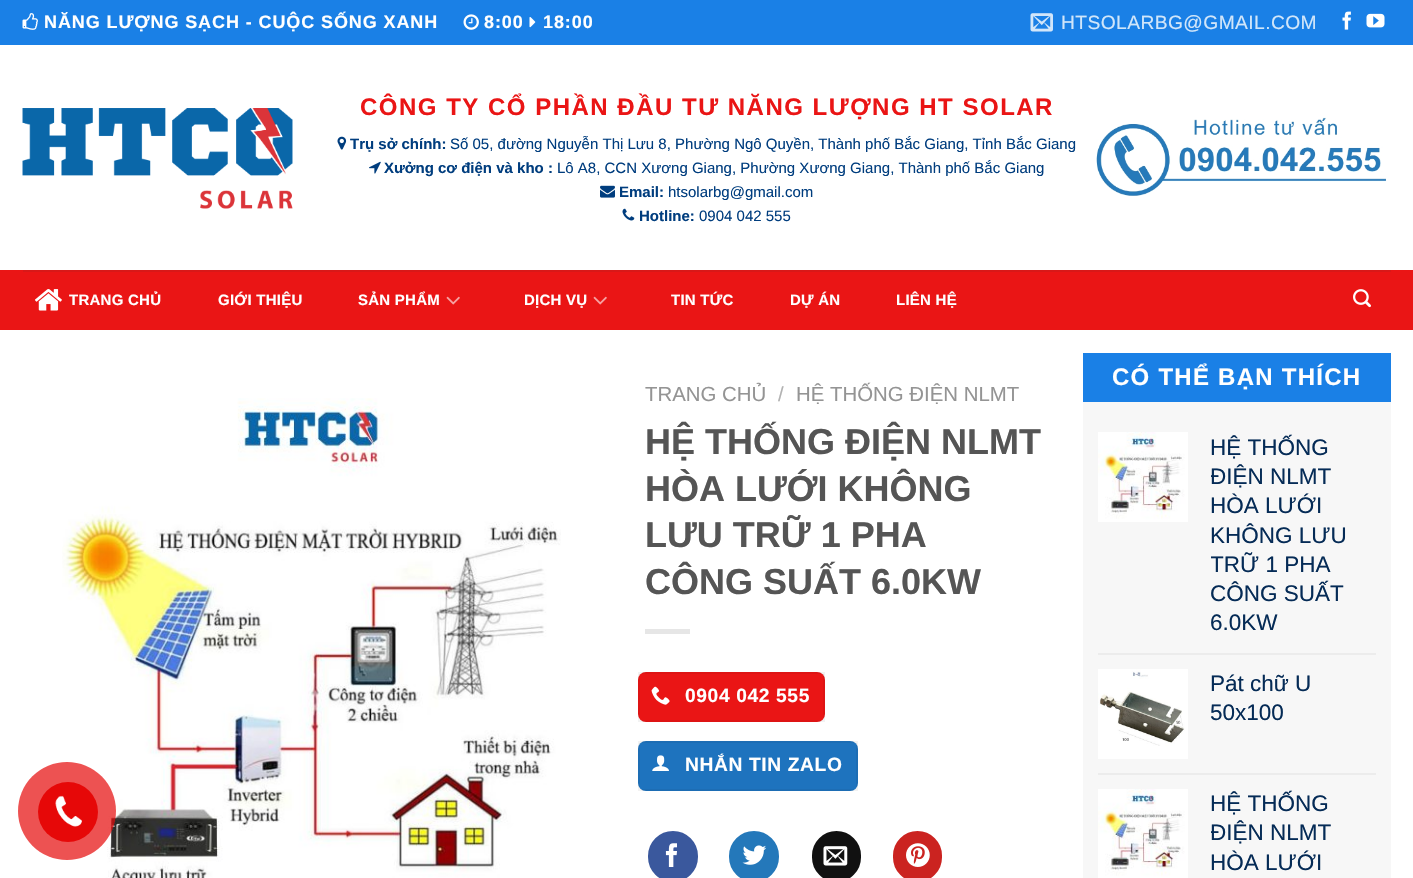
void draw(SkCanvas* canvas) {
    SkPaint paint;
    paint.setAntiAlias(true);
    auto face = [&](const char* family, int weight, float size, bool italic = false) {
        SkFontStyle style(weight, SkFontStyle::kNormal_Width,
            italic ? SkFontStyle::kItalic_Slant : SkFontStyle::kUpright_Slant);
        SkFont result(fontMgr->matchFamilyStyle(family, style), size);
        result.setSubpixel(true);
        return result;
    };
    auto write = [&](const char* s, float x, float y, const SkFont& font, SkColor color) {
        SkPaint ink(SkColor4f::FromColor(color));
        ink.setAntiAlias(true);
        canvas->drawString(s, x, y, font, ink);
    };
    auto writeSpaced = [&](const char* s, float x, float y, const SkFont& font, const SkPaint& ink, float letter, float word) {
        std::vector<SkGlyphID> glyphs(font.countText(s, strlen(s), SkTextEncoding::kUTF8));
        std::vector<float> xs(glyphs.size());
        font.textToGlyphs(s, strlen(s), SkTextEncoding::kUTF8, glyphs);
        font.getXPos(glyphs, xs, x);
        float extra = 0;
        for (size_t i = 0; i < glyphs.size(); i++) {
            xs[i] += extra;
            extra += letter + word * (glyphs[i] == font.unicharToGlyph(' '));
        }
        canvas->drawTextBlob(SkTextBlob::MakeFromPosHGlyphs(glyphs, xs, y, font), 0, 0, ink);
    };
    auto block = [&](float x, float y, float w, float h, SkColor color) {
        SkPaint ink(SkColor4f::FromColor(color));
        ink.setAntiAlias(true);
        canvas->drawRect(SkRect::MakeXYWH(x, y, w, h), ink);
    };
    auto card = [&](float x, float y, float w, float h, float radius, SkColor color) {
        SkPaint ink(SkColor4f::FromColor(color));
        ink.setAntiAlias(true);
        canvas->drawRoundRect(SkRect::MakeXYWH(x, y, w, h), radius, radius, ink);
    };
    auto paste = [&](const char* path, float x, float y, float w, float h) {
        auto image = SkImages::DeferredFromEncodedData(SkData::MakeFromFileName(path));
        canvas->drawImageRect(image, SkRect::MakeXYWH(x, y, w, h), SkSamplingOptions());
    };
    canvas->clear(SK_ColorWHITE);
    block(0, 0, 1413, 45, SkColorSetRGB(26, 128, 230));
    paste("pic1.png", 22, 13, 16, 17);
    auto kFont1 = face("Liberation Sans", 700, 18);
    paint.setColor(SK_ColorWHITE);
    writeSpaced("NĂNG LƯỢNG SẠCH - CUỘC SỐNG XANH", 44, 28, kFont1, paint, 0.9f, 0);
    paste("pic2.png", 463, 14, 16, 16);
    writeSpaced("8:00", 484, 28, kFont1, paint, 0.9f, 0);
    paste("pic3.png", 529, 17, 7, 11);
    writeSpaced("18:00", 543, 28, kFont1, paint, 0.9f, 0);
    paste("pic4.png", 1030, 13, 23, 19);
    auto kFont2 = face("Liberation Sans", 400, 19.25f);
    paint.setColor(SkColorSetRGB(209, 230, 250));
    writeSpaced("HTSOLARBG@GMAIL.COM", 1061, 29, kFont2, paint, 0.4f, 0);
    paste("pic5.png", 1342, 11, 9, 19);
    paste("pic6.png", 1366, 13, 19, 15);
    paste("pic7.png", 22, 108, 271, 101);
    auto kFont3 = face("Liberation Sans", 700, 24);
    paint.setColor(SkColorSetRGB(234, 21, 21));
    writeSpaced("CÔNG TY CỔ PHẦN ĐẦU TƯ NĂNG LƯỢNG HT SOLAR", 360, 115, kFont3, paint, 1.5f, 0);
    paste("pic8.png", 337, 136, 10, 14);
    auto kFont4 = face("Liberation Sans", 700, 15);
    write("Trụ sở chính:", 350, 149, kFont4, SkColorSetRGB(0, 61, 126));
    auto kFont5 = face("Liberation Sans", 400, 15);
    write("Số 05, đường Nguyễn Thị Lưu 8, Phường Ngô Quyền, Thành phố Bắc Giang, Tỉnh Bắc Giang", 450, 149, kFont5, SkColorSetRGB(0, 61, 126));
    paste("pic9.png", 369, 161, 12, 13);
    write("Xưởng cơ điện và kho :", 384, 173, kFont4, SkColorSetRGB(0, 61, 126));
    write("Lô A8, CCN Xương Giang, Phường Xương Giang, Thành phố Bắc Giang", 557, 173, kFont5, SkColorSetRGB(0, 61, 126));
    paste("pic10.png", 600, 185, 15, 13);
    write("Email:", 619, 197, kFont4, SkColorSetRGB(0, 61, 126));
    write("htsolarbg@gmail.com", 668, 197, kFont5, SkColorSetRGB(0, 61, 126));
    paste("pic11.png", 622, 208, 13, 13);
    write("Hotline:", 639, 221, kFont4, SkColorSetRGB(0, 61, 126));
    write("0904 042 555", 699, 221, kFont5, SkColorSetRGB(0, 61, 126));
    paste("pic12.png", 1096, 117, 291, 79);
    block(0, 270, 1413, 60, SkColorSetRGB(234, 21, 21));
    block(23, 270, 1368, 2, SkColorSetRGB(216, 24, 24));
    paste("pic13.png", 35, 289, 27, 22);
    paint.setColor(SK_ColorWHITE);
    writeSpaced("TRANG CHỦ", 69, 305, kFont4, paint, 0.25f, 0);
    writeSpaced("GIỚI THIỆU", 218, 305, kFont4, paint, 0.25f, 0);
    writeSpaced("SẢN PHẨM", 358, 305, kFont4, paint, 0.25f, 0);
    paste("pic14.png", 446, 296, 14, 9);
    writeSpaced("DỊCH VỤ", 524, 305, kFont4, paint, 0.25f, 0);
    paste("pic14.png", 593, 296, 14, 9);
    writeSpaced("TIN TỨC", 671, 305, kFont4, paint, 0.25f, 0);
    writeSpaced("DỰ ÁN", 790, 305, kFont4, paint, 0.25f, 0);
    writeSpaced("LIÊN HỆ", 896, 305, kFont4, paint, 0.25f, 0);
    paste("pic15.png", 1353, 289, 18, 19);
    paste("pic16.png", 62, 398, 499, 480);
    auto kFont6 = face("Liberation Sans", 400, 20.4f);
    write("TRANG CHỦ", 645, 401, kFont6, SkColorSetRGB(148, 148, 148));
    write("/", 778, 401, kFont6, SkColorSetRGB(178, 178, 178));
    write("HỆ THỐNG ĐIỆN NLMT", 796, 401, kFont6, SkColorSetRGB(148, 148, 148));
    auto kFont7 = face("Liberation Sans", 700, 36);
    write("HỆ THỐNG ĐIỆN NLMT", 645, 454, kFont7, SkColorSetRGB(85, 85, 85));
    write("HÒA LƯỚI KHÔNG", 645, 501, kFont7, SkColorSetRGB(85, 85, 85));
    write("LƯU TRỮ 1 PHA", 645, 547, kFont7, SkColorSetRGB(85, 85, 85));
    write("CÔNG SUẤT 6.0KW", 645, 594, kFont7, SkColorSetRGB(85, 85, 85));
    block(645, 629, 45, 5, SkColorSetRGB(230, 230, 230));
    card(638, 672, 187, 50, 8, SkColorSetRGB(234, 21, 21));
    paint.setStyle(SkPaint::kStroke_Style);
    paint.setStrokeWidth(2);
    paint.setColor(SkColorSetARGB(13, 0, 0, 0));
    canvas->drawRect(SkRect::MakeXYWH(639, 673, 185, 48), paint);
    paste("pic17.png", 651, 686, 19, 19);
    auto kFont8 = face("Liberation Sans", 700, 19.25f);
    paint.setStyle(SkPaint::kFill_Style);
    paint.setColor(SK_ColorWHITE);
    writeSpaced("0904 042 555", 685, 702, kFont8, paint, 0.6f, 0);
    card(638, 741, 220, 50, 8, SkColorSetRGB(30, 115, 190));
    paint.setStyle(SkPaint::kStroke_Style);
    paint.setColor(SkColorSetARGB(13, 0, 0, 0));
    canvas->drawRect(SkRect::MakeXYWH(639, 742, 218, 48), paint);
    paste("pic18.png", 652, 755, 17, 16);
    paint.setStyle(SkPaint::kFill_Style);
    paint.setColor(SK_ColorWHITE);
    writeSpaced("NHẮN TIN ZALO", 685, 771, kFont8, paint, 0.6f, 0);
    paint.setColor(SkColorSetRGB(58, 88, 157));
    canvas->drawRoundRect(SkRect::MakeXYWH(649, 832, 48, 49), 24, 24, paint);
    paint.setStyle(SkPaint::kStroke_Style);
    canvas->drawRoundRect(SkRect::MakeXYWH(649, 832, 48, 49), 24, 24, paint);
    paste("pic19.png", 665, 843, 12, 24);
    paint.setStyle(SkPaint::kFill_Style);
    paint.setColor(SkColorSetRGB(36, 120, 186));
    canvas->drawRoundRect(SkRect::MakeXYWH(730, 832, 48, 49), 24, 24, paint);
    paint.setStyle(SkPaint::kStroke_Style);
    canvas->drawRoundRect(SkRect::MakeXYWH(730, 832, 48, 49), 24, 24, paint);
    paste("pic20.png", 742, 845, 25, 20);
    paint.setStyle(SkPaint::kFill_Style);
    paint.setColor(SkColorSetRGB(17, 17, 17));
    canvas->drawRoundRect(SkRect::MakeXYWH(813, 832, 47, 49), 23.5f, 23.5f, paint);
    paint.setStyle(SkPaint::kStroke_Style);
    canvas->drawRoundRect(SkRect::MakeXYWH(813, 832, 47, 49), 23.5f, 23.5f, paint);
    paste("pic21.png", 823, 846, 25, 20);
    paint.setStyle(SkPaint::kFill_Style);
    paint.setColor(SkColorSetRGB(203, 35, 32));
    canvas->drawRoundRect(SkRect::MakeXYWH(894, 832, 47, 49), 23.5f, 23.5f, paint);
    paint.setStyle(SkPaint::kStroke_Style);
    canvas->drawRoundRect(SkRect::MakeXYWH(894, 832, 47, 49), 23.5f, 23.5f, paint);
    paste("pic22.png", 906, 843, 24, 24);
    block(1083, 402, 308, 476, SkColorSetRGB(247, 247, 247));
    block(1083, 353, 308, 49, SkColorSetRGB(26, 128, 230));
    paint.setStyle(SkPaint::kFill_Style);
    paint.setColor(SK_ColorWHITE);
    writeSpaced("CÓ THỂ BẠN THÍCH", 1112, 385, kFont3, paint, 1.25f, 0);
    paste("pic23.png", 1098, 432, 90, 90);
    auto kFont9 = face("Liberation Sans", 400, 22.5f);
    write("HỆ THỐNG", 1210, 455, kFont9, SkColorSetRGB(5, 43, 86));
    canvas->save();
    canvas->clipRect(SkRect::MakeXYWH(1211, 432, 165, 206));
    write("ĐIỆN NLMT", 1210, 484, kFont9, SkColorSetRGB(5, 43, 86));
    canvas->restore();
    write("HÒA LƯỚI", 1210, 513, kFont9, SkColorSetRGB(5, 43, 86));
    write("KHÔNG LƯU", 1210, 543, kFont9, SkColorSetRGB(5, 43, 86));
    canvas->save();
    canvas->clipRect(SkRect::MakeXYWH(1211, 432, 165, 206));
    write("TRỮ 1 PHA", 1210, 572, kFont9, SkColorSetRGB(5, 43, 86));
    canvas->restore();
    write("CÔNG SUẤT", 1210, 601, kFont9, SkColorSetRGB(5, 43, 86));
    write("6.0KW", 1210, 630, kFont9, SkColorSetRGB(5, 43, 86));
    block(1098, 653, 278, 2, SkColorSetRGB(236, 236, 236));
    paste("pic24.png", 1098, 669, 90, 90);
    write("Pát chữ U", 1210, 691, kFont9, SkColorSetRGB(5, 43, 86));
    write("50x100", 1210, 720, kFont9, SkColorSetRGB(5, 43, 86));
    block(1098, 773, 278, 2, SkColorSetRGB(236, 236, 236));
    paste("pic25.png", 1098, 789, 90, 89);
    write("HỆ THỐNG", 1210, 811, kFont9, SkColorSetRGB(5, 43, 86));
    canvas->save();
    canvas->clipRect(SkRect::MakeXYWH(1211, 789, 165, 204));
    write("ĐIỆN NLMT", 1210, 840, kFont9, SkColorSetRGB(5, 43, 86));
    canvas->restore();
    write("HÒA LƯỚI", 1210, 870, kFont9, SkColorSetRGB(5, 43, 86));
    paint.setColor(SkColorSetARGB(179, 230, 8, 8));
    canvas->drawCircle(67, 811, 49, paint);
    paint.setColor(SkColorSetRGB(230, 8, 8));
    canvas->drawCircle(68, 812, 30, paint);
    paste("pic26.png", 55, 795, 27, 32);
}
